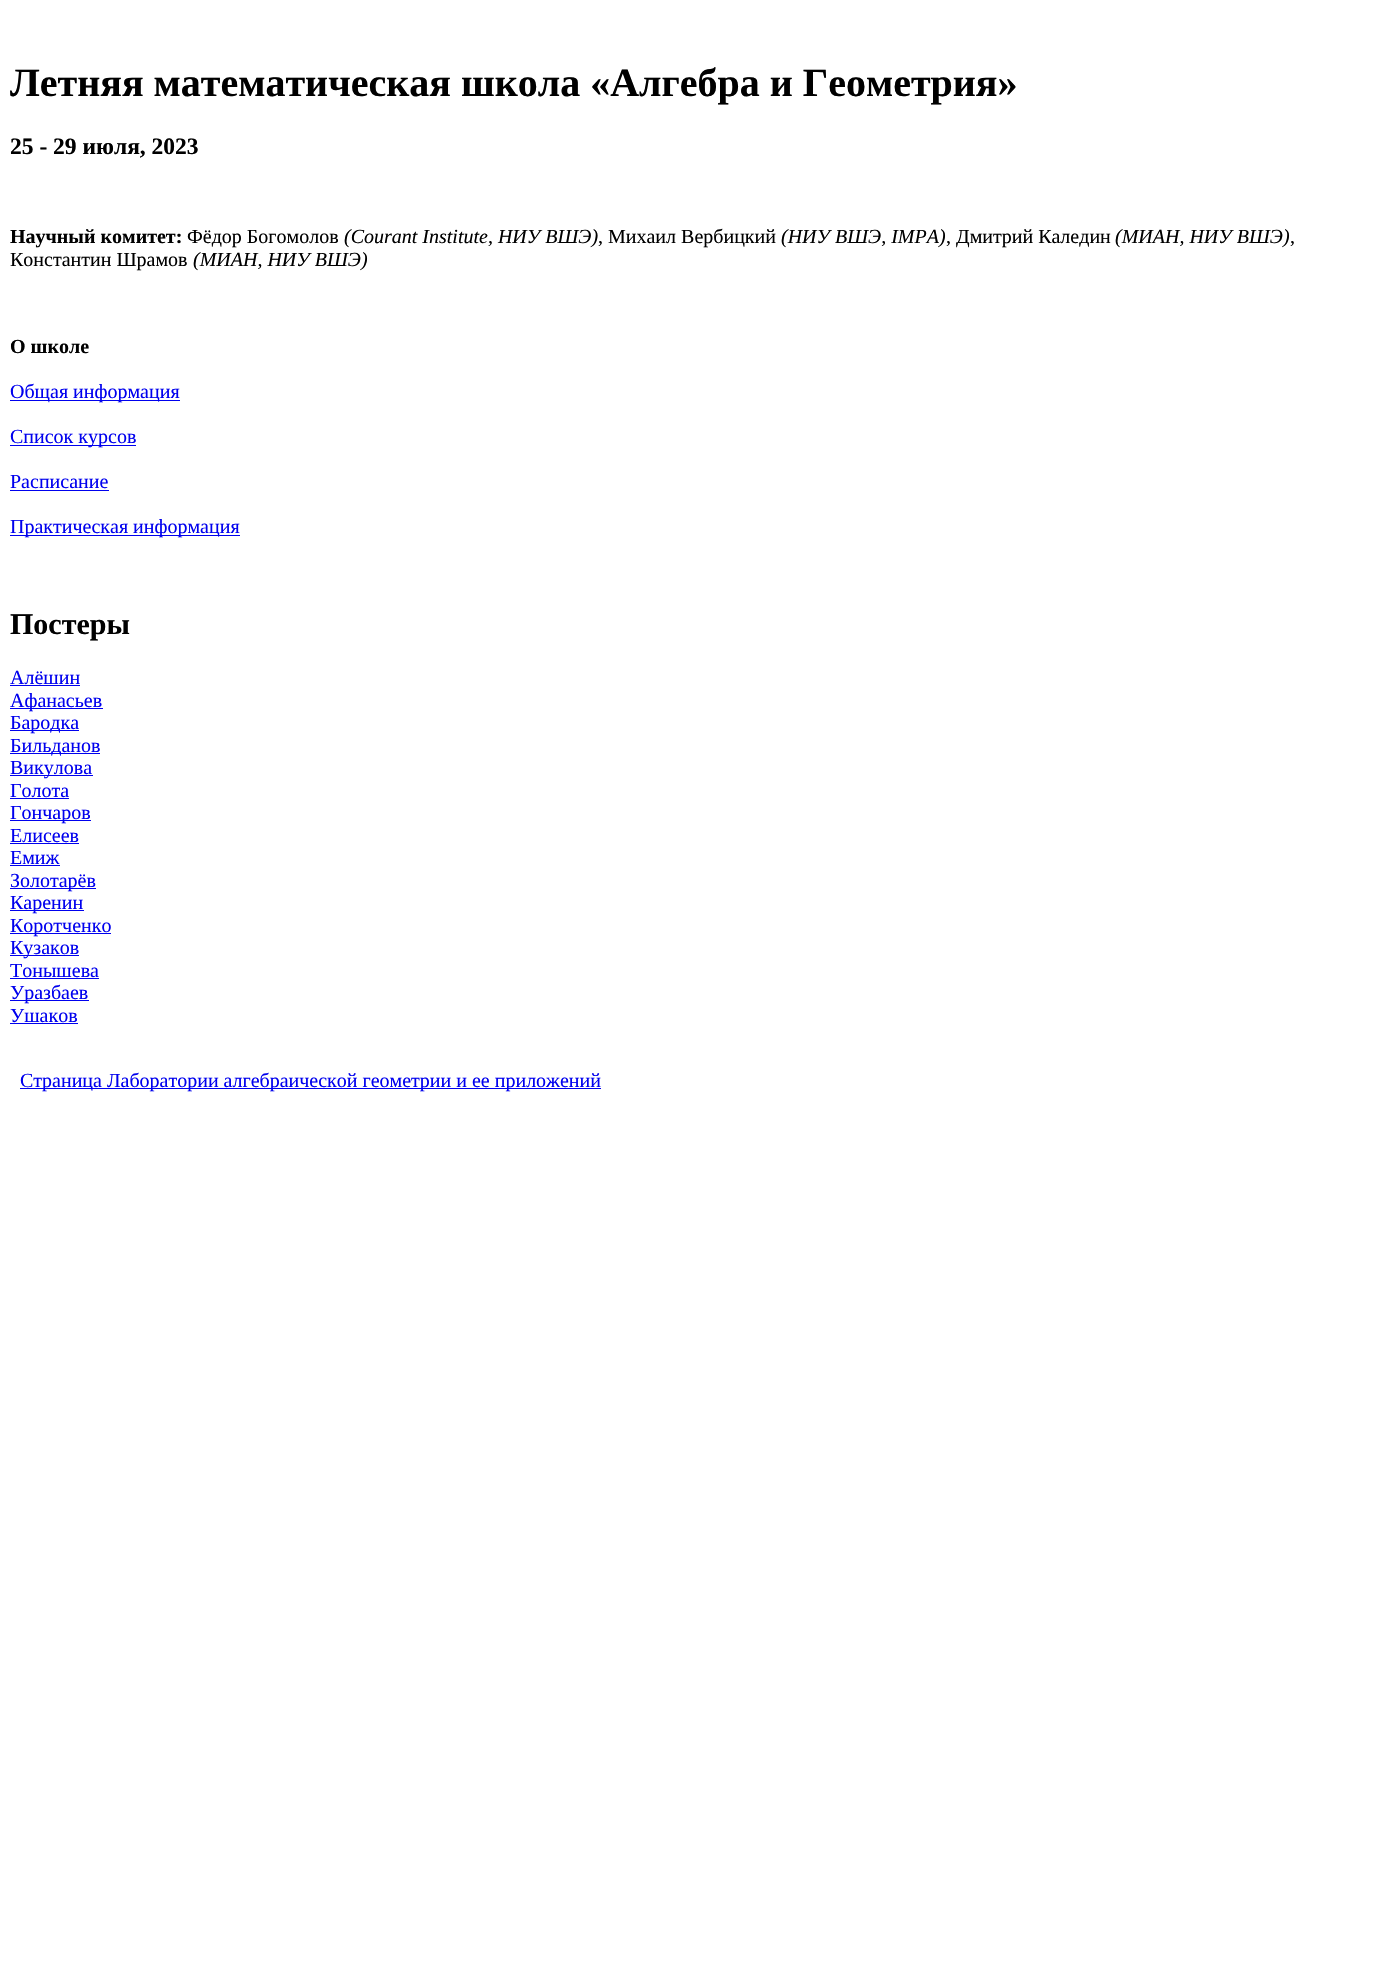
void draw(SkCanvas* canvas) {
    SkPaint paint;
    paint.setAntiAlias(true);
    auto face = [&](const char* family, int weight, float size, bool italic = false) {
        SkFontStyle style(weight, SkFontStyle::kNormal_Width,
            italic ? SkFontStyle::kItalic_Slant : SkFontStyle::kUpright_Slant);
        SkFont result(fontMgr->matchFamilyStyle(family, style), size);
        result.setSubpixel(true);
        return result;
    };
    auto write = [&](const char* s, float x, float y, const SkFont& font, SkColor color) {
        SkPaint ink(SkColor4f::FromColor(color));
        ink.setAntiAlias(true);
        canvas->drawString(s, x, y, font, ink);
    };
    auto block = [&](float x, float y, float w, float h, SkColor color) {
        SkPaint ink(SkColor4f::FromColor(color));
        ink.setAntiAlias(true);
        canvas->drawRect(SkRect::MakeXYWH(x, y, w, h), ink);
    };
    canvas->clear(SK_ColorWHITE);
    auto kFont1 = face("Liberation Serif", 700, 40);
    write("Летняя математическая школа «Алгебра и Геометрия»", 10, 96, kFont1, SK_ColorBLACK);
    auto kFont2 = face("Liberation Serif", 700, 23.5f);
    write("25 - 29 июля, 2023", 10, 154, kFont2, SK_ColorBLACK);
    auto kFont3 = face("Liberation Serif", 700, 20);
    write("Научный комитет:", 10, 243, kFont3, SK_ColorBLACK);
    auto kFont4 = face("Liberation Serif", 400, 20);
    write("Фёдор Богомолов", 187, 243, kFont4, SK_ColorBLACK);
    auto kFont5 = face("Liberation Serif", 400, 20, true);
    write("(Courant Institute, НИУ ВШЭ)", 344, 243, kFont5, SK_ColorBLACK);
    write(", Михаил Вербицкий", 598, 243, kFont4, SK_ColorBLACK);
    write("(НИУ ВШЭ, IMPA)", 781, 243, kFont5, SK_ColorBLACK);
    write(", Дмитрий Каледин", 946, 243, kFont4, SK_ColorBLACK);
    write("(МИАН, НИУ ВШЭ)", 1115, 243, kFont5, SK_ColorBLACK);
    write(",", 1290, 243, kFont4, SK_ColorBLACK);
    write("Константин Шрамов", 10, 266, kFont4, SK_ColorBLACK);
    write("(МИАН, НИУ ВШЭ)", 193, 266, kFont5, SK_ColorBLACK);
    write("О школе", 10, 353, kFont3, SK_ColorBLACK);
    block(10, 400, 170, 1, SkColorSetRGB(0, 0, 238));
    write("Общая информация", 10, 398, kFont4, SkColorSetRGB(0, 0, 238));
    block(10, 445, 126, 1, SkColorSetRGB(0, 0, 238));
    write("Список курсов", 10, 443, kFont4, SkColorSetRGB(0, 0, 238));
    write("Расписание", 10, 488, kFont4, SkColorSetRGB(0, 0, 238));
    block(10, 490, 99, 1, SkColorSetRGB(0, 0, 238));
    block(10, 535, 230, 1, SkColorSetRGB(0, 0, 238));
    write("Практическая информация", 10, 533, kFont4, SkColorSetRGB(0, 0, 238));
    auto kFont6 = face("Liberation Serif", 700, 30);
    write("Постеры", 10, 634, kFont6, SK_ColorBLACK);
    write("Алёшин", 10, 684, kFont4, SkColorSetRGB(0, 0, 238));
    block(10, 685, 70, 1, SkColorSetRGB(0, 0, 238));
    block(10, 708, 93, 1, SkColorSetRGB(0, 0, 238));
    write("Афанасьев", 10, 707, kFont4, SkColorSetRGB(0, 0, 238));
    block(10, 730, 69, 1, SkColorSetRGB(0, 0, 238));
    write("Бародка", 10, 729, kFont4, SkColorSetRGB(0, 0, 238));
    block(10, 753, 90, 1, SkColorSetRGB(0, 0, 238));
    write("Бильданов", 10, 752, kFont4, SkColorSetRGB(0, 0, 238));
    block(10, 775, 83, 1, SkColorSetRGB(0, 0, 238));
    write("Викулова", 10, 774, kFont4, SkColorSetRGB(0, 0, 238));
    write("Голота", 10, 797, kFont4, SkColorSetRGB(0, 0, 238));
    block(10, 798, 59, 1, SkColorSetRGB(0, 0, 238));
    block(10, 820, 81, 1, SkColorSetRGB(0, 0, 238));
    write("Гончаров", 10, 819, kFont4, SkColorSetRGB(0, 0, 238));
    write("Елисеев", 10, 842, kFont4, SkColorSetRGB(0, 0, 238));
    block(10, 843, 69, 1, SkColorSetRGB(0, 0, 238));
    write("Емиж", 10, 864, kFont4, SkColorSetRGB(0, 0, 238));
    block(10, 865, 50, 1, SkColorSetRGB(0, 0, 238));
    block(10, 888, 86, 1, SkColorSetRGB(0, 0, 238));
    write("Золотарёв", 10, 887, kFont4, SkColorSetRGB(0, 0, 238));
    block(10, 910, 74, 1, SkColorSetRGB(0, 0, 238));
    write("Каренин", 10, 909, kFont4, SkColorSetRGB(0, 0, 238));
    block(10, 933, 101, 1, SkColorSetRGB(0, 0, 238));
    write("Коротченко", 10, 932, kFont4, SkColorSetRGB(0, 0, 238));
    block(10, 955, 69, 1, SkColorSetRGB(0, 0, 238));
    write("Кузаков", 10, 954, kFont4, SkColorSetRGB(0, 0, 238));
    write("Тонышева", 10, 977, kFont4, SkColorSetRGB(0, 0, 238));
    block(10, 978, 89, 1, SkColorSetRGB(0, 0, 238));
    block(10, 1000, 79, 1, SkColorSetRGB(0, 0, 238));
    write("Уразбаев", 10, 999, kFont4, SkColorSetRGB(0, 0, 238));
    write("Ушаков", 10, 1022, kFont4, SkColorSetRGB(0, 0, 238));
    block(10, 1023, 68, 1, SkColorSetRGB(0, 0, 238));
    block(20, 1088, 581, 1, SkColorSetRGB(0, 0, 238));
    write("Страница Лаборатории алгебраической геометрии и ее приложений", 20, 1087, kFont4, SkColorSetRGB(0, 0, 238));
}
